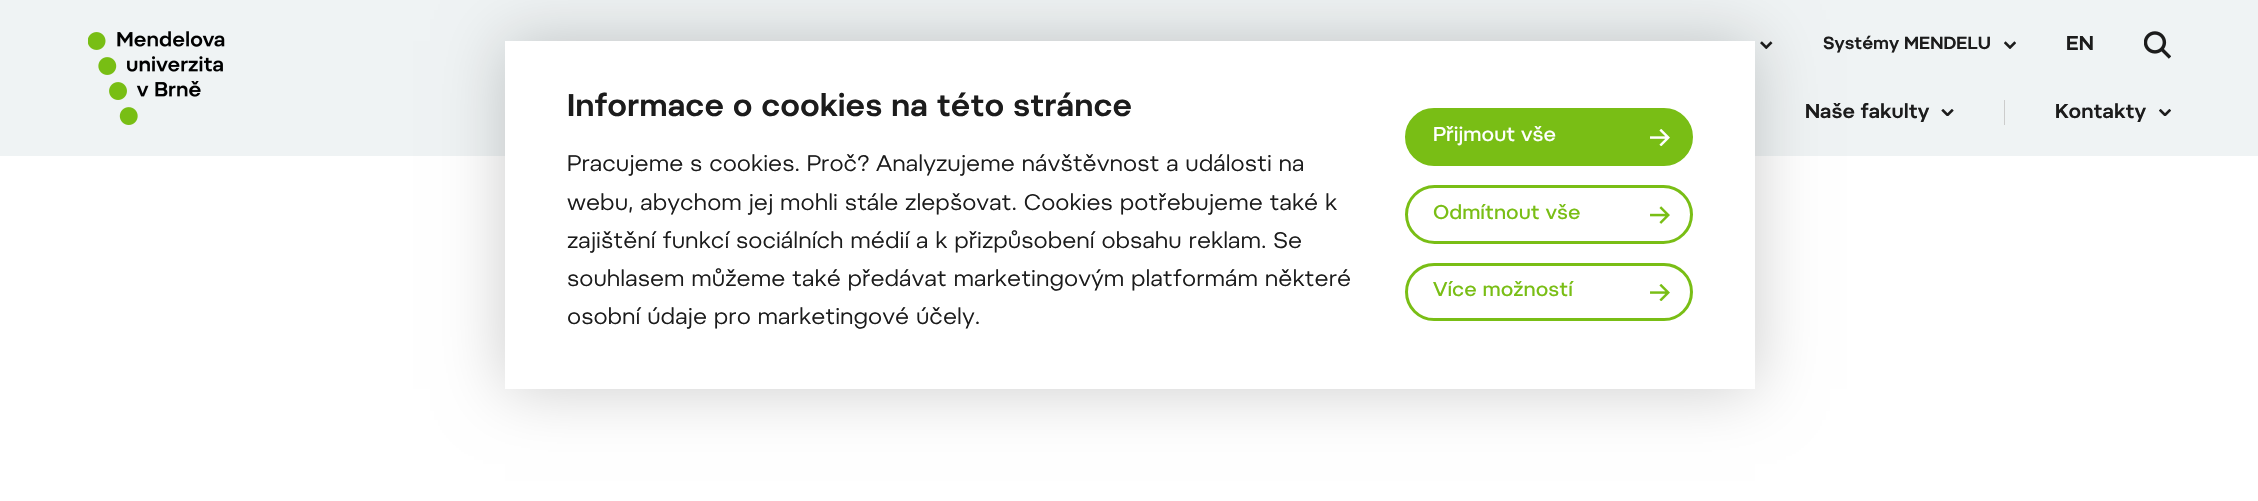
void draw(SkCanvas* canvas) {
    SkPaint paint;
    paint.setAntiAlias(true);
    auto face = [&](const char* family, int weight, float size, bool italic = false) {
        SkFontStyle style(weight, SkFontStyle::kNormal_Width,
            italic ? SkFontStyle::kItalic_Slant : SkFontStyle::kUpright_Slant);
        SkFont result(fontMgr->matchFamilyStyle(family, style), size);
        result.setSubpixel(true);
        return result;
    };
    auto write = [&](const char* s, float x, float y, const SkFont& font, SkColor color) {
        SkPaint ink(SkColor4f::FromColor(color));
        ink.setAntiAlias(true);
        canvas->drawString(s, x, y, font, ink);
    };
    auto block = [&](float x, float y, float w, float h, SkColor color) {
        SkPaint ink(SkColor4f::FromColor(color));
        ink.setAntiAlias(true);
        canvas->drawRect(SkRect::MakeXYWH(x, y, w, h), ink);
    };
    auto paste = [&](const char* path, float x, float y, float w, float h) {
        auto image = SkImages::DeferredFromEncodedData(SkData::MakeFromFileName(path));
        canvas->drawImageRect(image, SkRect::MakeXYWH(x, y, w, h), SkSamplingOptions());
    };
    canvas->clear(SK_ColorWHITE);
    block(0, 0, 2258, 156, SkColorSetRGB(239, 243, 244));
    paste("pic1.png", 88, 31, 137, 94);
    paste("pic2.png", 1760, 41, 13, 8);
    auto kFont1 = face("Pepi", 600, 17.5f);
    write("Systémy MENDELU", 1823, 49, kFont1, SkColorSetRGB(28, 28, 28));
    paste("pic3.png", 2004, 41, 12, 8);
    auto kFont2 = face("Pepi", 600, 20);
    write("EN", 2066, 50, kFont2, SkColorSetRGB(28, 28, 28));
    paste("pic4.png", 2144, 31, 27, 28);
    write("Naše fakulty", 1805, 118, kFont2, SkColorSetRGB(28, 28, 28));
    paste("pic5.png", 1941, 109, 13, 7);
    block(2004, 100, 1, 25, SkColorSetRGB(204, 204, 204));
    write("Kontakty", 2055, 118, kFont2, SkColorSetRGB(28, 28, 28));
    paste("pic6.png", 2159, 109, 12, 7);
    paint.setColor(SkColorSetARGB(51, 0, 0, 0));
    paint.setMaskFilter(SkMaskFilter::MakeBlur(kNormal_SkBlurStyle, 31));
    canvas->drawRect(SkRect::MakeXYWH(505, 41, 1250, 348), paint);
    paint.setMaskFilter(nullptr);
    block(505, 41, 1250, 348, SK_ColorWHITE);
    auto kFont3 = face("Pepi", 600, 31.25f);
    write("Informace o cookies na této stránce", 567, 116, kFont3, SkColorSetRGB(28, 28, 28));
    auto kFont4 = face("Pepi", 400, 22.5f);
    write("Pracujeme s cookies. Proč? Analyzujeme návštěvnost a události na", 567, 171, kFont4, SkColorSetRGB(28, 28, 28));
    write("webu, abychom jej mohli stále zlepšovat. Cookies potřebujeme také k", 567, 210, kFont4, SkColorSetRGB(28, 28, 28));
    write("zajištění funkcí sociálních médií a k přizpůsobení obsahu reklam. Se", 567, 248, kFont4, SkColorSetRGB(28, 28, 28));
    write("souhlasem můžeme také předávat marketingovým platformám některé", 567, 286, kFont4, SkColorSetRGB(28, 28, 28));
    write("osobní údaje pro marketingové účely.", 567, 324, kFont4, SkColorSetRGB(28, 28, 28));
    paint.setColor(SkColorSetRGB(121, 190, 21));
    canvas->drawRoundRect(SkRect::MakeXYWH(1406.5f, 109.5f, 285, 55), 27.5f, 27.5f, paint);
    paint.setStyle(SkPaint::kStroke_Style);
    paint.setStrokeWidth(3);
    canvas->drawRoundRect(SkRect::MakeXYWH(1406.5f, 109.5f, 285, 55), 27.5f, 27.5f, paint);
    auto kFont5 = face("Pepi", 500, 20);
    write("Přijmout vše", 1433, 141, kFont5, SK_ColorWHITE);
    paste("pic7.png", 1650, 129, 20, 17);
    canvas->drawRoundRect(SkRect::MakeXYWH(1406.5f, 186.5f, 285, 56), 28, 28, paint);
    write("Odmítnout vše", 1433, 219, kFont5, SkColorSetRGB(121, 190, 21));
    paste("pic8.png", 1650, 206, 20, 18);
    canvas->drawRoundRect(SkRect::MakeXYWH(1406.5f, 264.5f, 285, 55), 27.5f, 27.5f, paint);
    write("Více možností", 1433, 296, kFont5, SkColorSetRGB(121, 190, 21));
    paste("pic9.png", 1650, 284, 20, 17);
}
